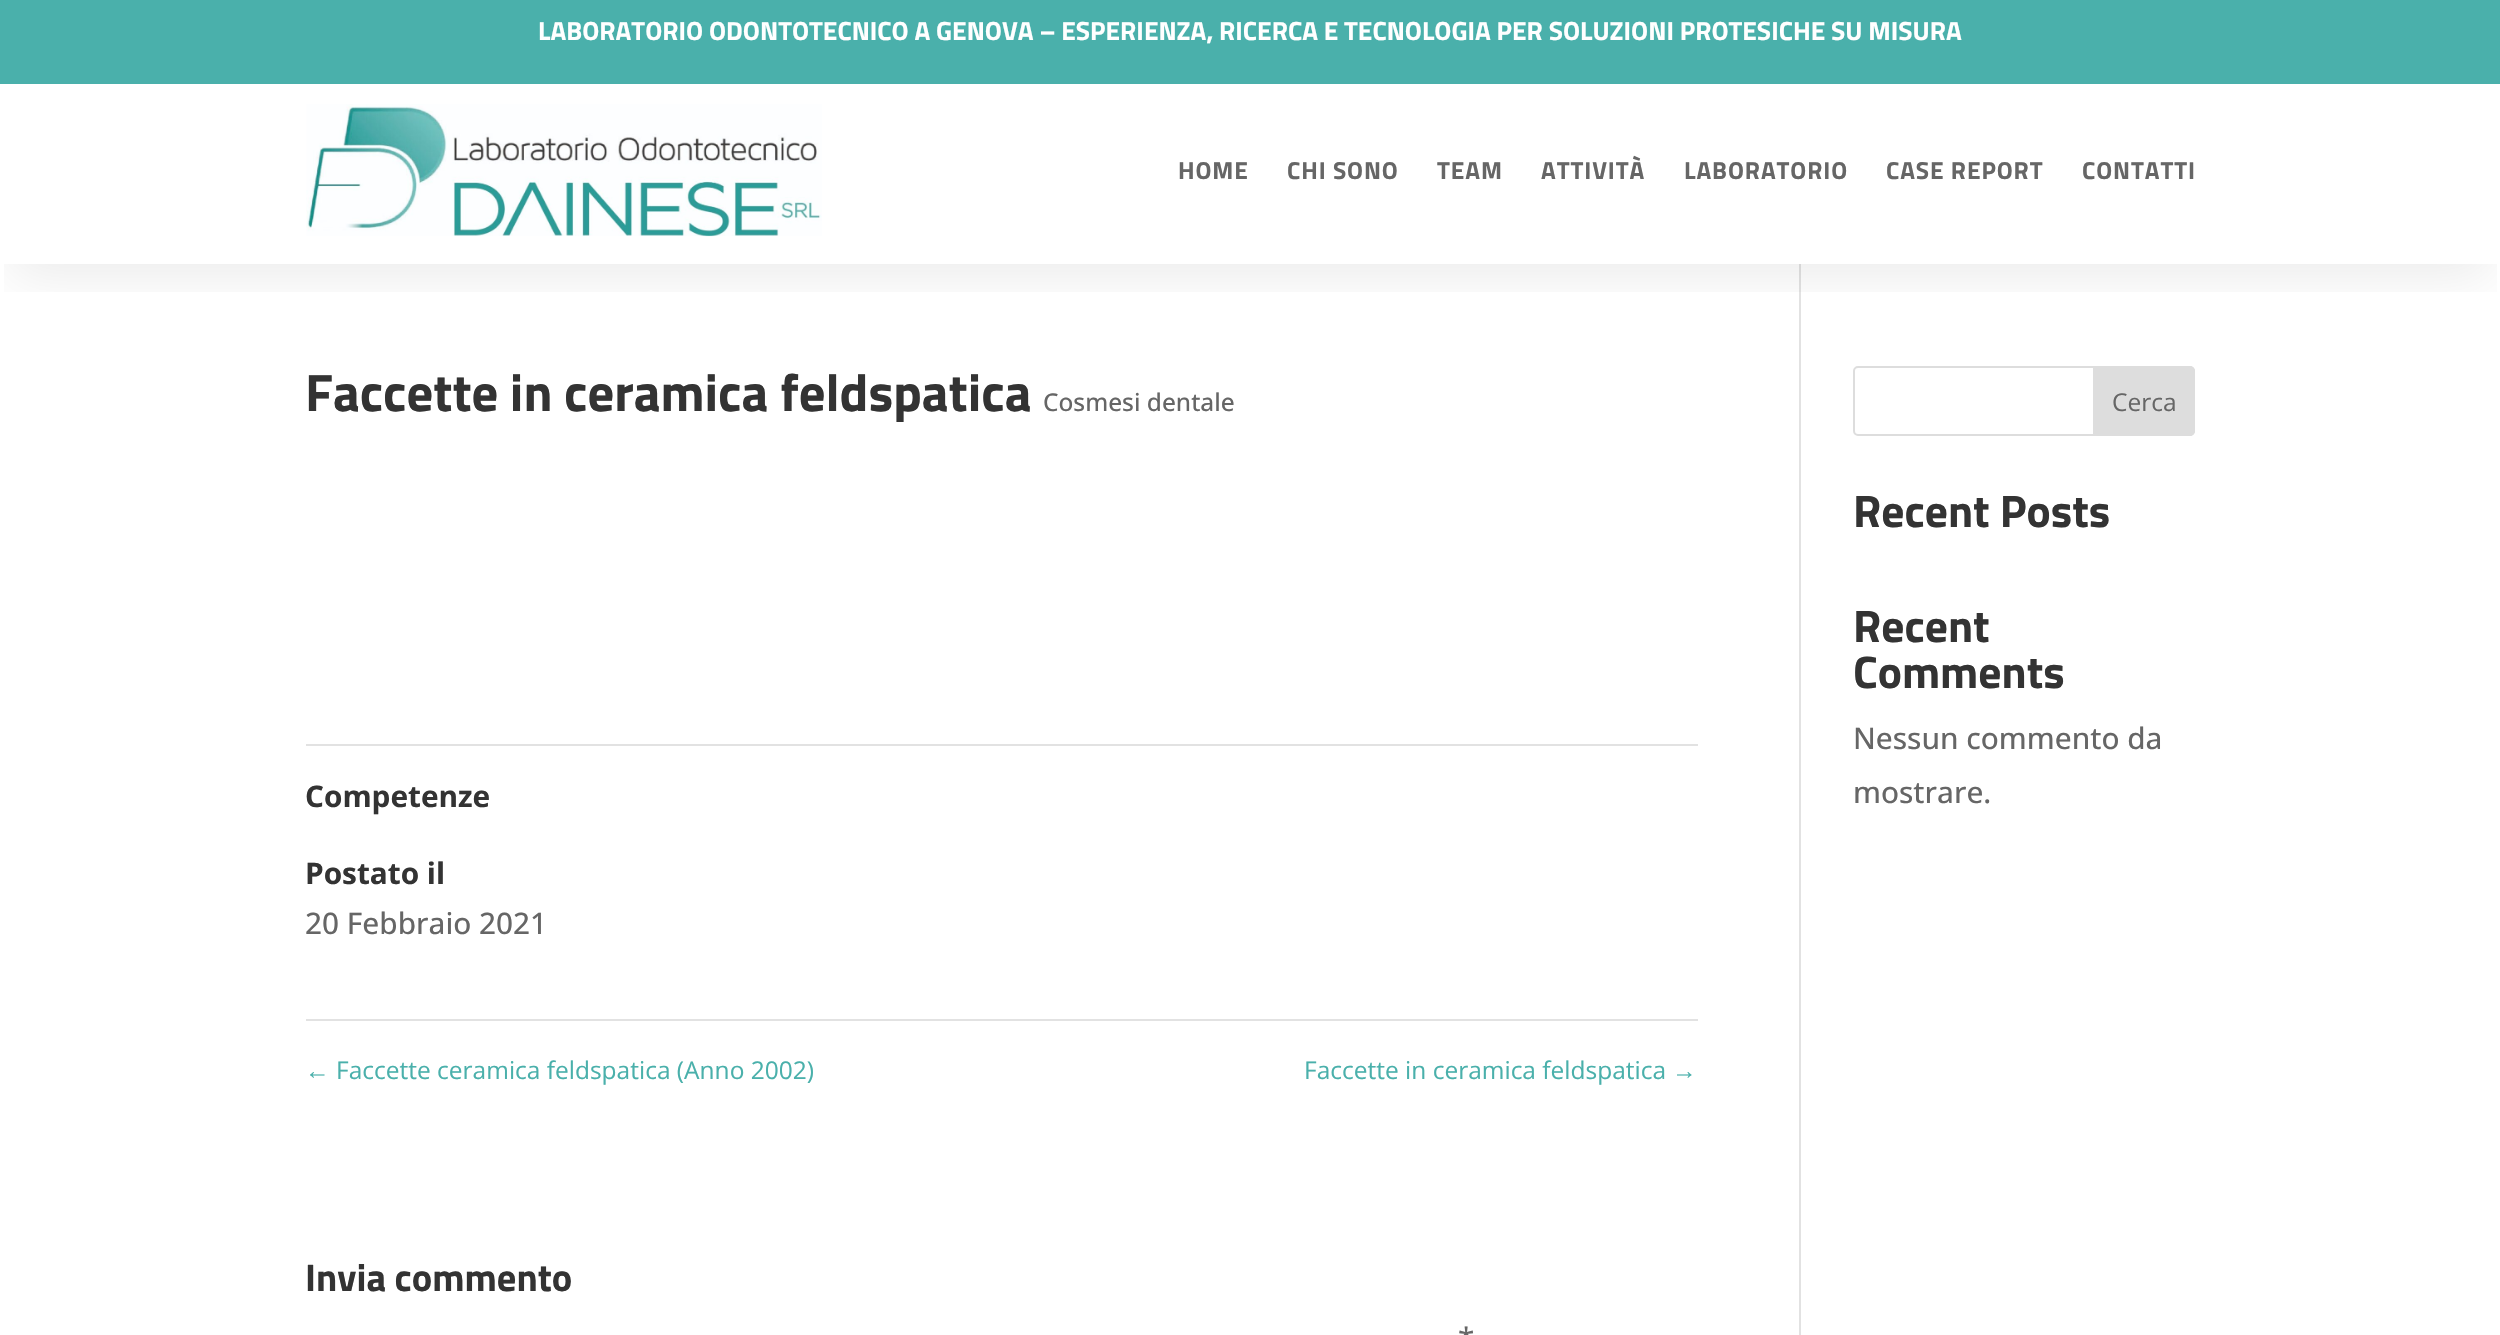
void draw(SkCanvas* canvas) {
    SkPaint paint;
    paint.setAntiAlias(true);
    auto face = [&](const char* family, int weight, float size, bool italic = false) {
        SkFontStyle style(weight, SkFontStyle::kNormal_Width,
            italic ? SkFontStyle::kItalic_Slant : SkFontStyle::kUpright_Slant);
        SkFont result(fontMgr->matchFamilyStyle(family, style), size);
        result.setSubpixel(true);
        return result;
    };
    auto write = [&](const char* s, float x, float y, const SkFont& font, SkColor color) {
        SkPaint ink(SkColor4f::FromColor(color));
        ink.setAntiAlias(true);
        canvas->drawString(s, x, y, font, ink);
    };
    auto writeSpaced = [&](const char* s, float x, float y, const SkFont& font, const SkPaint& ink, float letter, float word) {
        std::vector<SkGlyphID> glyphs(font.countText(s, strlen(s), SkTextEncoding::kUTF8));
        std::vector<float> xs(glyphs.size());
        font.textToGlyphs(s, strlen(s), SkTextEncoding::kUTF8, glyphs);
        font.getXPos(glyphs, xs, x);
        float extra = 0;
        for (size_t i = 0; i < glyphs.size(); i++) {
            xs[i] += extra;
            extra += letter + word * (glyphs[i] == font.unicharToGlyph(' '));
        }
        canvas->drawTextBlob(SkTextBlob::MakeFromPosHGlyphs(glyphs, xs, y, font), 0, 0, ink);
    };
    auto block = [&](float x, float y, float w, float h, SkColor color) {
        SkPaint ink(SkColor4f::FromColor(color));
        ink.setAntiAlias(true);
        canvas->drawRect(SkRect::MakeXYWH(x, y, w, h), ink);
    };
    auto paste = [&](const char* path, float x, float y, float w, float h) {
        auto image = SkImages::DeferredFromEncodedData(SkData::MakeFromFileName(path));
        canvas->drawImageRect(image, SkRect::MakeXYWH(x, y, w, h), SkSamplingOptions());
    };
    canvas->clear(SK_ColorWHITE);
    block(0, 0, 2500, 84, SkColorSetRGB(74, 176, 171));
    auto kFont1 = face("Titillium Web", 700, 26.25f);
    write("LABORATORIO ODONTOTECNICO A GENOVA – ESPERIENZA, RICERCA E TECNOLOGIA PER SOLUZIONI PROTESICHE SU MISURA", 538, 40, kFont1, SK_ColorWHITE);
    block(1799, 264, 2, 1071, SkColorSetRGB(226, 226, 226));
    canvas->save();
    canvas->clipRect(SkRect::MakeXYWH(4, 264, 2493, 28));
    paint.setColor(SkColorSetARGB(20, 0, 0, 0));
    paint.setMaskFilter(SkMaskFilter::MakeBlur(kNormal_SkBlurStyle, 24.5f));
    canvas->drawRect(SkRect::MakeXYWH(11, 116, 2479, 159), paint);
    paint.setMaskFilter(nullptr);
    canvas->restore();
    paste("pic1.png", 306, 104, 516, 133);
    auto kFont2 = face("Titillium Web", 700, 24.5f);
    paint.setColor(SkColorSetRGB(102, 102, 102));
    writeSpaced("HOME", 1178, 179, kFont2, paint, 0.9f, 0);
    writeSpaced("CHI SONO", 1287, 179, kFont2, paint, 0.9f, 0);
    writeSpaced("TEAM", 1437, 179, kFont2, paint, 0.9f, 0);
    writeSpaced("ATTIVITÀ", 1541, 179, kFont2, paint, 0.9f, 0);
    writeSpaced("LABORATORIO", 1684, 179, kFont2, paint, 0.9f, 0);
    writeSpaced("CASE REPORT", 1886, 179, kFont2, paint, 0.9f, 0);
    writeSpaced("CONTATTI", 2082, 179, kFont2, paint, 0.9f, 0);
    auto kFont3 = face("Titillium Web", 700, 52.5f);
    write("Faccette in ceramica feldspatica", 305, 411, kFont3, SkColorSetRGB(51, 51, 51));
    auto kFont4 = face("Open Sans", 500, 24.5f);
    write("Cosmesi dentale", 1043, 411, kFont4, SkColorSetRGB(102, 102, 102));
    block(306, 744, 1392, 2, SkColorSetRGB(226, 226, 226));
    block(306, 1019, 1392, 2, SkColorSetRGB(226, 226, 226));
    auto kFont5 = face("Open Sans", 700, 29.75f);
    write("Competenze", 305, 807, kFont5, SkColorSetRGB(51, 51, 51));
    write("Postato il", 305, 884, kFont5, SkColorSetRGB(51, 51, 51));
    auto kFont6 = face("Open Sans", 500, 29.75f);
    write("20 Febbraio 2021", 305, 934, kFont6, SkColorSetRGB(102, 102, 102));
    auto kFont7 = face("Liberation Sans", 400, 24.5f);
    write("←", 305, 1079, kFont7, SkColorSetRGB(74, 176, 171));
    auto kFont8 = face("Open Sans", 400, 24.5f);
    write("Faccette ceramica feldspatica (Anno 2002)", 336, 1079, kFont8, SkColorSetRGB(74, 176, 171));
    write("Faccette in ceramica feldspatica", 1304, 1079, kFont8, SkColorSetRGB(74, 176, 171));
    write("→", 1672, 1079, kFont7, SkColorSetRGB(74, 176, 171));
    auto kFont9 = face("Titillium Web", 700, 38.5f);
    write("Invia commento", 305, 1291, kFont9, SkColorSetRGB(51, 51, 51));
    write("*", 1458, 1349, kFont6, SkColorSetRGB(102, 102, 102));
    paint.setStyle(SkPaint::kStroke_Style);
    paint.setStrokeWidth(2);
    paint.setColor(SkColorSetRGB(221, 221, 221));
    canvas->drawRoundRect(SkRect::MakeXYWH(1854, 367, 340, 68), 4, 4, paint);
    paint.setStyle(SkPaint::kFill_Style);
    canvas->drawPath(SkPathBuilder().moveTo(2094, 367).lineTo(2190, 367).cubicTo(2192, 367, 2194, 369, 2194, 371).lineTo(2194, 431).cubicTo(2194, 433, 2192, 435, 2190, 435).lineTo(2094, 435).close().detach(), paint);
    paint.setStyle(SkPaint::kStroke_Style);
    canvas->drawPath(SkPathBuilder().moveTo(2094, 367).lineTo(2190, 367).cubicTo(2192, 367, 2194, 369, 2194, 371).lineTo(2194, 431).cubicTo(2194, 433, 2192, 435, 2190, 435).lineTo(2094, 435).close().detach(), paint);
    write("Cerca", 2112, 411, kFont8, SkColorSetRGB(102, 102, 102));
    auto kFont10 = face("Titillium Web", 700, 45.5f);
    write("Recent Posts", 1853, 527, kFont10, SkColorSetRGB(51, 51, 51));
    write("Recent", 1853, 642, kFont10, SkColorSetRGB(51, 51, 51));
    write("Comments", 1853, 688, kFont10, SkColorSetRGB(51, 51, 51));
    write("Nessun commento da", 1853, 749, kFont6, SkColorSetRGB(102, 102, 102));
    write("mostrare.", 1853, 803, kFont6, SkColorSetRGB(102, 102, 102));
}
